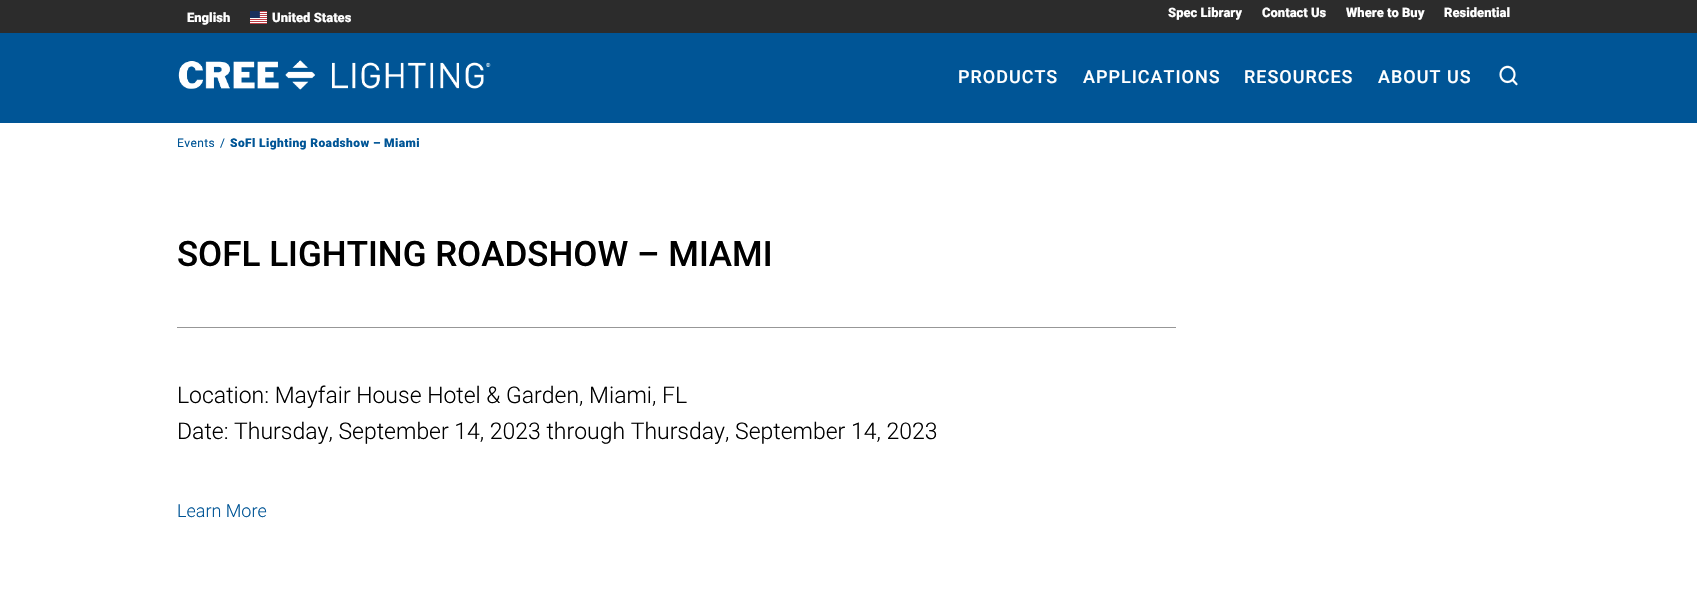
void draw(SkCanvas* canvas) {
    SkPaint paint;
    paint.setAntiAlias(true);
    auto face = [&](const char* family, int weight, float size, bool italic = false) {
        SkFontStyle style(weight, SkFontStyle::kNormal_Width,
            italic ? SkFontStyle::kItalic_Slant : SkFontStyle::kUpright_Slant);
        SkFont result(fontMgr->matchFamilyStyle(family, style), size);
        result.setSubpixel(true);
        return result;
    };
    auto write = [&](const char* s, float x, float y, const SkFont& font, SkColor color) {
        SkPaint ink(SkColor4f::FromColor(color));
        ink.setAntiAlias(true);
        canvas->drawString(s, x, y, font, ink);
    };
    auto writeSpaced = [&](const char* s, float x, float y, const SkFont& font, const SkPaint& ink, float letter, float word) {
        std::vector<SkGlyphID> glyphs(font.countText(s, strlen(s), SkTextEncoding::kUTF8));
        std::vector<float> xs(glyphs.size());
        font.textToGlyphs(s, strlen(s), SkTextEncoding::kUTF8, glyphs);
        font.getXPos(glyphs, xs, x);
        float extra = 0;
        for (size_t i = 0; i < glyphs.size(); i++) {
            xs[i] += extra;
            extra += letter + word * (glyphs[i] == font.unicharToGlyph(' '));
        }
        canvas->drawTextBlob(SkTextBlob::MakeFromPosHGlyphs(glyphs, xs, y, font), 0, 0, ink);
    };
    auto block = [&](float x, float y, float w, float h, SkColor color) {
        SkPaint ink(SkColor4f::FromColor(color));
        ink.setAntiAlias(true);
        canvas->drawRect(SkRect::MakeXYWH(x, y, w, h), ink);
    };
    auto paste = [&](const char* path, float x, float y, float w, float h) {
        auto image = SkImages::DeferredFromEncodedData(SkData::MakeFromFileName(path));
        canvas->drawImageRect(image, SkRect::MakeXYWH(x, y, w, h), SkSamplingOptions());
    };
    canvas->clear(SK_ColorWHITE);
    block(0, 0, 1697, 33, SkColorSetRGB(44, 44, 44));
    auto kFont1 = face("Roboto", 900, 13);
    write("English", 187, 22, kFont1, SK_ColorWHITE);
    paste("pic1.png", 250, 11, 17, 13);
    write("United States", 272, 22, kFont1, SK_ColorWHITE);
    write("Spec Library", 1168, 17, kFont1, SK_ColorWHITE);
    write("Contact Us", 1262, 17, kFont1, SK_ColorWHITE);
    write("Where to Buy", 1346, 17, kFont1, SK_ColorWHITE);
    write("Residential", 1444, 17, kFont1, SK_ColorWHITE);
    block(0, 33, 1697, 90, SkColorSetRGB(0, 85, 150));
    paste("pic2.png", 178, 60, 313, 30);
    auto kFont2 = face("Roboto", 500, 18);
    paint.setColor(SK_ColorWHITE);
    writeSpaced("PRODUCTS", 958, 83, kFont2, paint, 1, 0);
    writeSpaced("APPLICATIONS", 1083, 83, kFont2, paint, 1, 0);
    writeSpaced("RESOURCES", 1244, 83, kFont2, paint, 1, 0);
    writeSpaced("ABOUT US", 1378, 83, kFont2, paint, 1, 0);
    paste("pic3.png", 1499, 65, 19, 21);
    auto kFont3 = face("Roboto", 400, 12);
    paint.setColor(SkColorSetRGB(0, 85, 150));
    writeSpaced("Events", 177, 147, kFont3, paint, 0.4f, 0);
    writeSpaced("/", 220, 147, kFont3, paint, 0.4f, 0);
    auto kFont4 = face("Roboto", 900, 12);
    writeSpaced("SoFl Lighting Roadshow – Miami", 230, 147, kFont4, paint, 0.4f, 0);
    auto kFont5 = face("Roboto", 500, 35);
    write("SOFL LIGHTING ROADSHOW – MIAMI", 177, 266, kFont5, SK_ColorBLACK);
    block(177, 327, 999, 1, SkColorSetRGB(151, 151, 151));
    auto kFont6 = face("Roboto", 300, 23);
    write("Location: Mayfair House Hotel & Garden, Miami, FL", 177, 403, kFont6, SK_ColorBLACK);
    write("Date: Thursday, September 14, 2023 through Thursday, September 14, 2023", 177, 439, kFont6, SK_ColorBLACK);
    auto kFont7 = face("Roboto", 300, 18);
    write("Learn More", 177, 517, kFont7, SkColorSetRGB(0, 85, 150));
}
